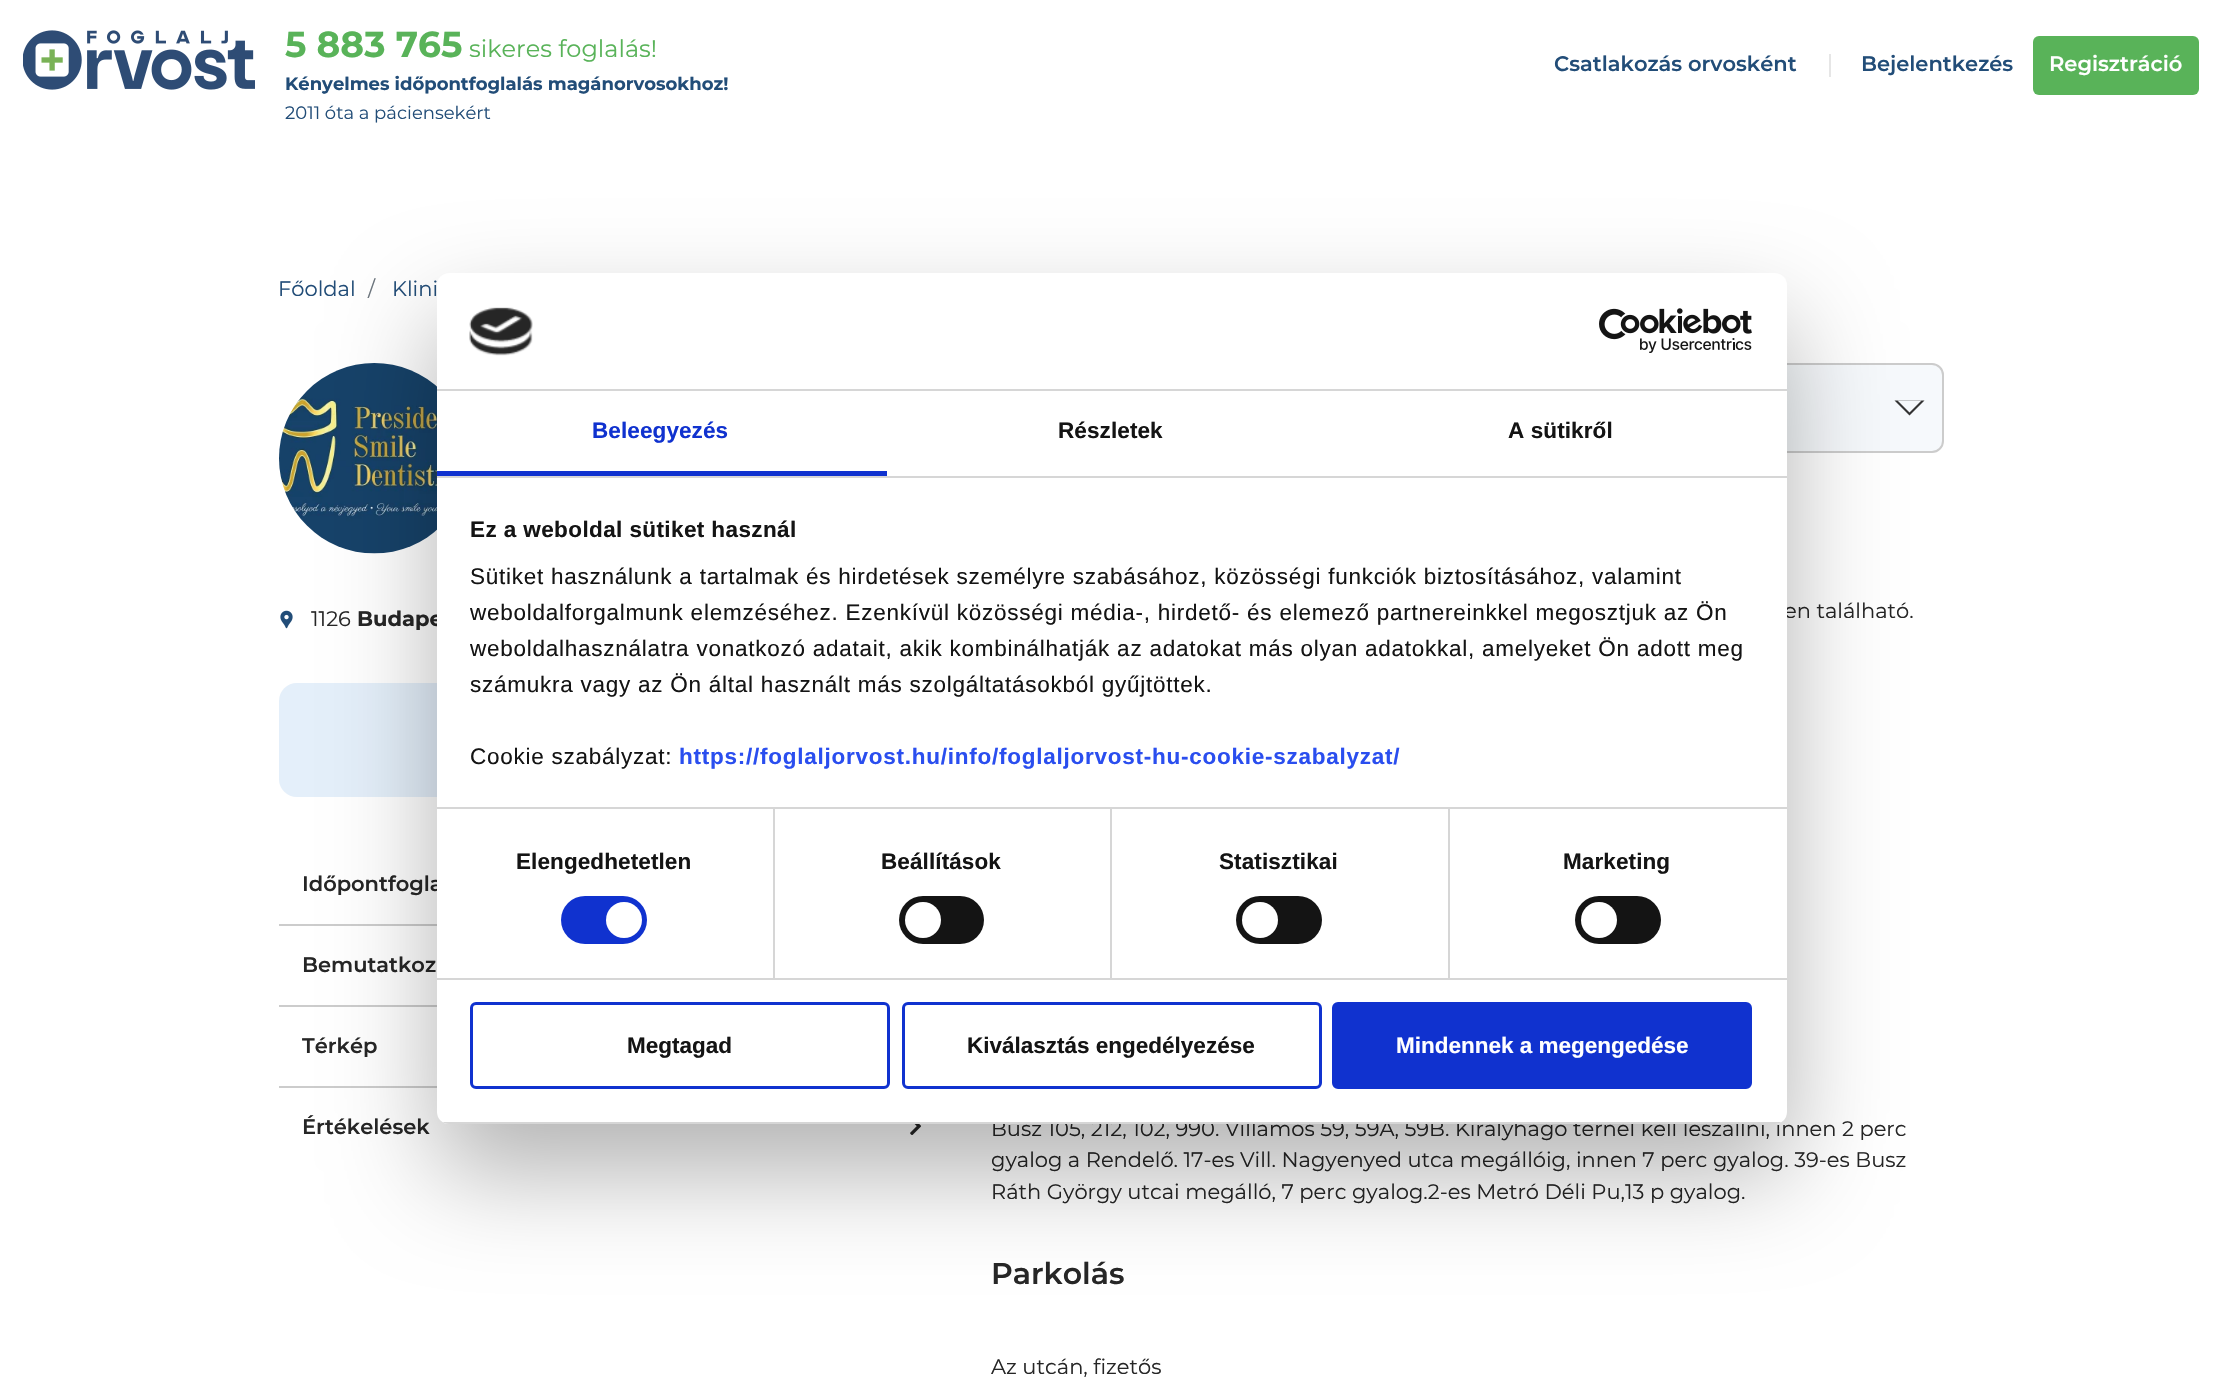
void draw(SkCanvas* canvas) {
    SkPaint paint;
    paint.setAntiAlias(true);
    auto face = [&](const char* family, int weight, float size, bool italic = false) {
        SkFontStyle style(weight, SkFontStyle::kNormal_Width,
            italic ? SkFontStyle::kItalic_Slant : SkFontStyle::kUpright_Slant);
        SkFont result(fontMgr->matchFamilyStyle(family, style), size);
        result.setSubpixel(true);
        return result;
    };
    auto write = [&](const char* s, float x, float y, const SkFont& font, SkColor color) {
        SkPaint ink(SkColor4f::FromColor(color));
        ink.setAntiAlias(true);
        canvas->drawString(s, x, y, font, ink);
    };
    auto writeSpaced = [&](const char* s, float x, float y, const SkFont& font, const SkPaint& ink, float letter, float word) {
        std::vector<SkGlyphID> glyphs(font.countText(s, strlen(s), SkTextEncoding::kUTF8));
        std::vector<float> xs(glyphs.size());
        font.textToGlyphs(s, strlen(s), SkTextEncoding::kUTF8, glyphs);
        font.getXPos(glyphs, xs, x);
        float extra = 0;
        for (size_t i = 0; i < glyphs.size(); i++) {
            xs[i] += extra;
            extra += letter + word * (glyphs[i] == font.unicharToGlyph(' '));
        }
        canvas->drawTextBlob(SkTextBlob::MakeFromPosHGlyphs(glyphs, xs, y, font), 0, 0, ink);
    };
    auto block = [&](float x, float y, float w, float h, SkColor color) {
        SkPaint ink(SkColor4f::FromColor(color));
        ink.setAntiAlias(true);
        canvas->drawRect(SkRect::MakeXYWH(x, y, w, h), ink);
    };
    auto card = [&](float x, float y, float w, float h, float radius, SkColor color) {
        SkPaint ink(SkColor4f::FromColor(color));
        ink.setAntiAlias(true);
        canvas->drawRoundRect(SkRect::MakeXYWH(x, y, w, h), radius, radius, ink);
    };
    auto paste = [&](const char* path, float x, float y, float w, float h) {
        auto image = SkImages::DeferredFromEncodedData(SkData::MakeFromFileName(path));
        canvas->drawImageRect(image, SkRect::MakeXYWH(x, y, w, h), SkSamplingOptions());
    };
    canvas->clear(SK_ColorWHITE);
    paste("pic1.png", 23, 30, 232, 60);
    auto kFont1 = face("Montserrat", 700, 36);
    write("5 883 765", 285, 57, kFont1, SkColorSetRGB(89, 179, 89));
    auto kFont2 = face("Montserrat", 400, 24);
    write("sikeres foglalás!", 469, 57, kFont2, SkColorSetRGB(89, 179, 89));
    auto kFont3 = face("Montserrat", 700, 18);
    write("Kényelmes időpontfoglalás magánorvosokhoz!", 285, 90, kFont3, SkColorSetRGB(34, 77, 120));
    auto kFont4 = face("Montserrat", 400, 18);
    write("2011 óta a páciensekért", 285, 119, kFont4, SkColorSetRGB(34, 77, 120));
    auto kFont5 = face("Montserrat", 600, 21);
    write("Csatlakozás orvosként", 1554, 71, kFont5, SkColorSetRGB(34, 77, 120));
    block(1829, 54, 2, 23, SkColorSetRGB(230, 230, 230));
    write("Bejelentkezés", 1861, 71, kFont5, SkColorSetRGB(34, 77, 120));
    card(2033, 36, 166, 59, 6, SkColorSetRGB(89, 179, 89));
    write("Regisztráció", 2049, 71, kFont5, SK_ColorWHITE);
    auto kFont6 = face("Montserrat", 400, 21);
    write("Főoldal", 278, 296, kFont6, SkColorSetRGB(34, 77, 120));
    write("/", 368, 296, kFont6, SkColorSetRGB(108, 117, 125));
    write("Klini", 392, 296, kFont6, SkColorSetRGB(34, 77, 120));
    paste("pic2.png", 279, 363, 158, 191);
    paste("pic3.png", 280, 610, 13, 19);
    write("1126", 311, 626, kFont6, SkColorSetRGB(38, 38, 38));
    auto kFont7 = face("Montserrat", 700, 21);
    write("Budape", 357, 626, kFont7, SkColorSetRGB(38, 38, 38));
    card(279, 683, 668, 114, 18, SkColorSetRGB(228, 239, 250));
    write("Időpontfogla", 302, 891, kFont5, SkColorSetRGB(38, 38, 38));
    block(279, 924, 158, 2, SkColorSetRGB(204, 204, 204));
    write("Bemutatkoz", 302, 972, kFont5, SkColorSetRGB(38, 38, 38));
    block(279, 1005, 158, 2, SkColorSetRGB(204, 204, 204));
    write("Térkép", 302, 1053, kFont5, SkColorSetRGB(38, 38, 38));
    block(279, 1086, 158, 2, SkColorSetRGB(204, 204, 204));
    write("Értékelések", 302, 1134, kFont5, SkColorSetRGB(38, 38, 38));
    paste("pic4.png", 910, 1124, 11, 11);
    paint.setColor(SkColorSetRGB(246, 249, 252));
    canvas->drawRoundRect(SkRect::MakeXYWH(1491, 364, 452, 88), 11, 11, paint);
    paint.setStyle(SkPaint::kStroke_Style);
    paint.setStrokeWidth(2);
    paint.setColor(SkColorSetRGB(204, 204, 204));
    canvas->drawRoundRect(SkRect::MakeXYWH(1491, 364, 452, 88), 11, 11, paint);
    paint.setStyle(SkPaint::kFill_Style);
    paint.setColor(SkColorSetRGB(51, 51, 51));
    canvas->drawPath(SkPathBuilder().moveTo(1894.5f, 400.5f).lineTo(1924.5f, 400.5f).lineTo(1909.5f, 415.5f).close().detach(), paint);
    paint.setColor(SkColorSetRGB(246, 249, 252));
    canvas->drawPath(SkPathBuilder().moveTo(1897.5f, 400.5f).lineTo(1921.5f, 400.5f).lineTo(1909.5f, 412.5f).close().detach(), paint);
    write("en található.", 1784, 618, kFont6, SkColorSetRGB(38, 38, 38));
    write("Busz 105, 212, 102, 990. Villamos 59, 59A, 59B. Királyhágó térnél kell leszállni, innen 2 perc", 991, 1136, kFont6, SkColorSetRGB(38, 38, 38));
    write("gyalog a Rendelő. 17-es Vill. Nagyenyed utca megállóig, innen 7 perc gyalog. 39-es Busz", 991, 1167, kFont6, SkColorSetRGB(38, 38, 38));
    write("Ráth György utcai megálló, 7 perc gyalog.2-es Metró Déli Pu,13 p gyalog.", 991, 1199, kFont6, SkColorSetRGB(38, 38, 38));
    auto kFont8 = face("Montserrat", 600, 30);
    write("Parkolás", 991, 1284, kFont8, SkColorSetRGB(38, 38, 38));
    write("Az utcán, fizetős", 991, 1374, kFont6, SkColorSetRGB(38, 38, 38));
    paint.setColor(SkColorSetARGB(77, 0, 0, 0));
    paint.setMaskFilter(SkMaskFilter::MakeBlur(kNormal_SkBlurStyle, 51));
    canvas->drawRoundRect(SkRect::MakeXYWH(437, 321, 1350, 851), 12, 12, paint);
    paint.setMaskFilter(nullptr);
    card(437, 273, 1350, 851, 12, SK_ColorWHITE);
    block(437, 389, 1350, 2, SkColorSetRGB(214, 214, 214));
    paste("pic5.png", 469, 307, 64, 49);
    paste("pic6.png", 1599, 308, 153, 45);
    block(437, 476, 1350, 2, SkColorSetRGB(214, 214, 214));
    block(437, 471, 450, 5, SkColorSetRGB(16, 50, 207));
    auto kFont9 = face("Liberation Sans", 700, 22.5f);
    paint.setColor(SkColorSetRGB(16, 50, 207));
    writeSpaced("Beleegyezés", 592, 438, kFont9, paint, 0.1f, 0);
    paint.setColor(SkColorSetRGB(20, 20, 20));
    writeSpaced("Részletek", 1058, 438, kFont9, paint, 0.1f, 0);
    writeSpaced("A sütikről", 1508, 438, kFont9, paint, 0.1f, 0);
    block(437, 807, 1350, 2, SkColorSetRGB(214, 214, 214));
    writeSpaced("Ez a weboldal sütiket használ", 470, 537, kFont9, paint, 0.4f, 0);
    auto kFont10 = face("Liberation Sans", 400, 22.5f);
    writeSpaced("Sütiket használunk a tartalmak és hirdetések személyre szabásához, közösségi funkciók biztosításához, valamint", 470, 584, kFont10, paint, 0.75f, 0);
    writeSpaced("weboldalforgalmunk elemzéséhez. Ezenkívül közösségi média-, hirdető- és elemező partnereinkkel megosztjuk az Ön", 470, 620, kFont10, paint, 0.75f, 0);
    writeSpaced("weboldalhasználatra vonatkozó adatait, akik kombinálhatják az adatokat más olyan adatokkal, amelyeket Ön adott meg", 470, 656, kFont10, paint, 0.75f, 0);
    writeSpaced("számukra vagy az Ön által használt más szolgáltatásokból gyűjtöttek.", 470, 692, kFont10, paint, 0.75f, 0);
    writeSpaced("Cookie szabályzat:", 470, 764, kFont10, paint, 0.75f, 0);
    paint.setColor(SkColorSetRGB(42, 78, 239));
    writeSpaced("https://foglaljorvost.hu/info/foglaljorvost-hu-cookie-szabalyzat/", 679, 764, kFont9, paint, 0.75f, 0);
    block(437, 978, 1350, 2, SkColorSetRGB(214, 214, 214));
    block(773, 809, 2, 169, SkColorSetRGB(214, 214, 214));
    paint.setColor(SkColorSetRGB(20, 20, 20));
    writeSpaced("Elengedhetetlen", 516, 869, kFont9, paint, 0.1f, 0);
    card(561, 896, 86, 48, 24, SkColorSetRGB(16, 50, 207));
    paint.setColor(SK_ColorWHITE);
    canvas->drawCircle(624, 920, 18, paint);
    block(1110, 809, 2, 169, SkColorSetRGB(214, 214, 214));
    paint.setColor(SkColorSetRGB(20, 20, 20));
    writeSpaced("Beállítások", 881, 869, kFont9, paint, 0.1f, 0);
    card(899, 896, 85, 48, 24, SkColorSetRGB(20, 20, 20));
    paint.setColor(SK_ColorWHITE);
    canvas->drawCircle(923, 920, 18, paint);
    block(1448, 809, 2, 169, SkColorSetRGB(214, 214, 214));
    paint.setColor(SkColorSetRGB(20, 20, 20));
    writeSpaced("Statisztikai", 1219, 869, kFont9, paint, 0.1f, 0);
    card(1236, 896, 86, 48, 24, SkColorSetRGB(20, 20, 20));
    paint.setColor(SK_ColorWHITE);
    canvas->drawCircle(1260, 920, 18, paint);
    paint.setColor(SkColorSetRGB(20, 20, 20));
    writeSpaced("Marketing", 1563, 869, kFont9, paint, 0.1f, 0);
    card(1575, 896, 86, 48, 24, SkColorSetRGB(20, 20, 20));
    paint.setColor(SK_ColorWHITE);
    canvas->drawCircle(1599, 920, 18, paint);
    canvas->save();
    canvas->clipPath(SkPathBuilder().moveTo(449, 273).lineTo(1775, 273).cubicTo(1781.5f, 273, 1787, 278.5f, 1787, 285).lineTo(1787, 1112).cubicTo(1787, 1118.5f, 1781.5f, 1124, 1775, 1124).lineTo(449, 1124).cubicTo(442.5f, 1124, 437, 1118.5f, 437, 1112).lineTo(437, 285).cubicTo(437, 278.5f, 442.5f, 273, 449, 273).close().detach(), true);
    block(437, 1122, 1350, 2, SkColorSetRGB(214, 214, 214));
    canvas->restore();
    paint.setStyle(SkPaint::kStroke_Style);
    paint.setStrokeWidth(3);
    paint.setColor(SkColorSetRGB(16, 50, 207));
    canvas->drawRoundRect(SkRect::MakeXYWH(471.5f, 1003.5f, 417, 84), 4.5f, 4.5f, paint);
    write("Megtagad", 627, 1053, kFont9, SkColorSetRGB(20, 20, 20));
    canvas->drawRoundRect(SkRect::MakeXYWH(903.5f, 1003.5f, 417, 84), 4.5f, 4.5f, paint);
    write("Kiválasztás engedélyezése", 967, 1053, kFont9, SkColorSetRGB(20, 20, 20));
    paint.setStyle(SkPaint::kFill_Style);
    canvas->drawRoundRect(SkRect::MakeXYWH(1333.5f, 1003.5f, 417, 84), 4.5f, 4.5f, paint);
    paint.setStyle(SkPaint::kStroke_Style);
    canvas->drawRoundRect(SkRect::MakeXYWH(1333.5f, 1003.5f, 417, 84), 4.5f, 4.5f, paint);
    write("Mindennek a megengedése", 1396, 1053, kFont9, SK_ColorWHITE);
}
